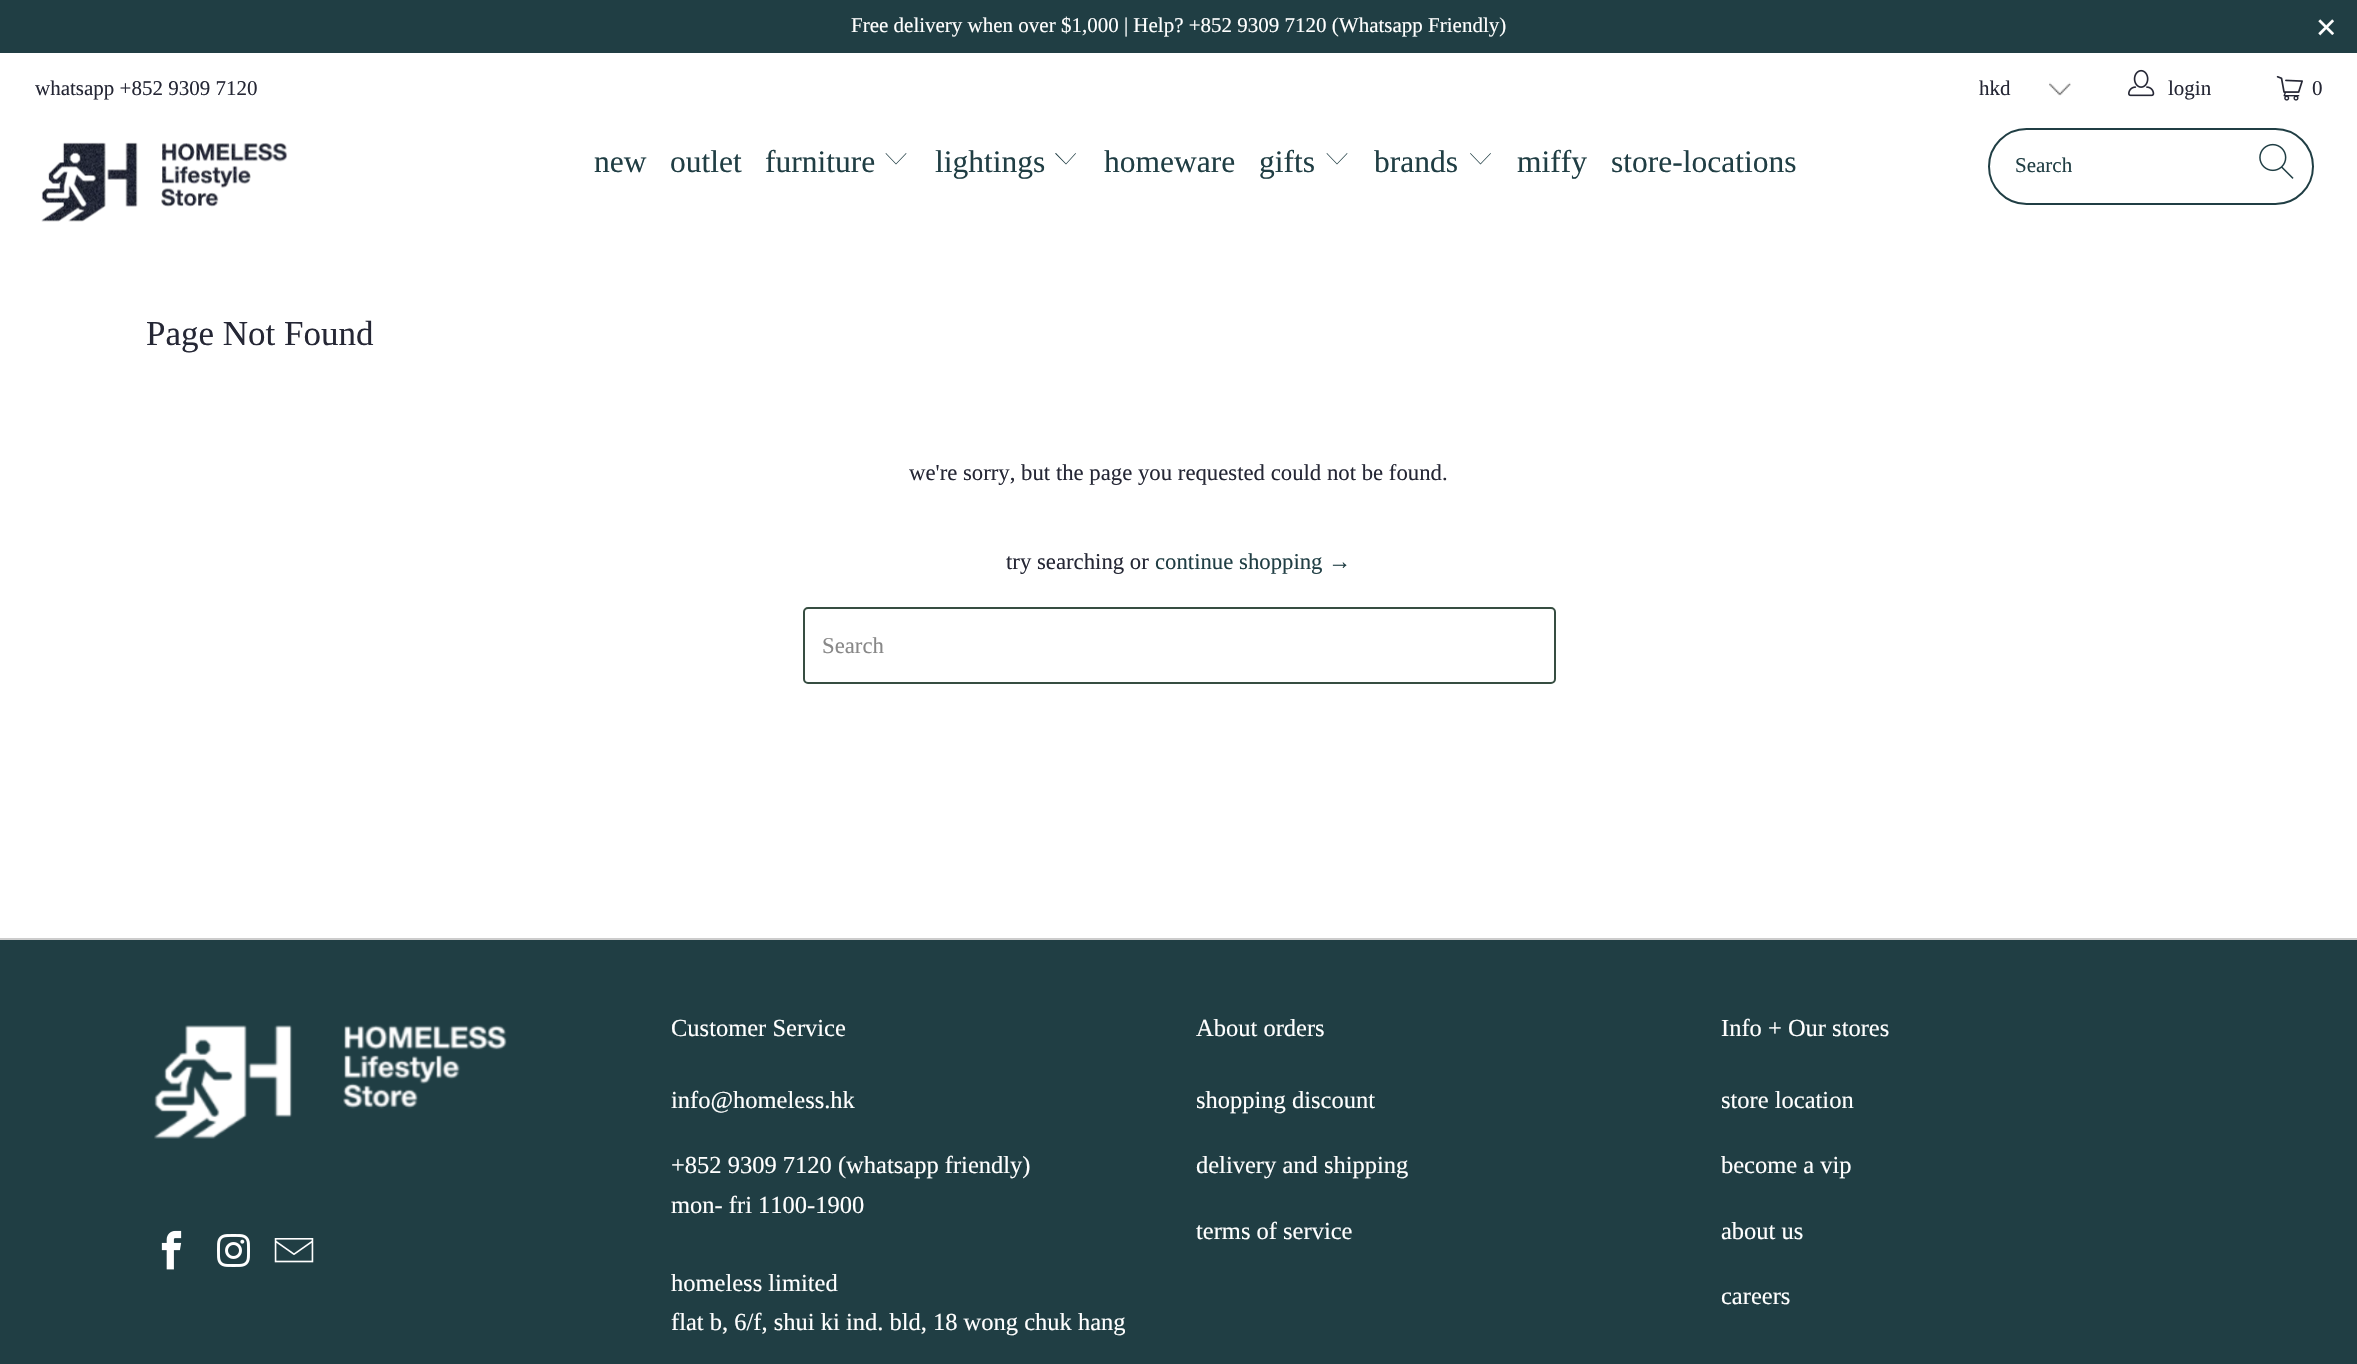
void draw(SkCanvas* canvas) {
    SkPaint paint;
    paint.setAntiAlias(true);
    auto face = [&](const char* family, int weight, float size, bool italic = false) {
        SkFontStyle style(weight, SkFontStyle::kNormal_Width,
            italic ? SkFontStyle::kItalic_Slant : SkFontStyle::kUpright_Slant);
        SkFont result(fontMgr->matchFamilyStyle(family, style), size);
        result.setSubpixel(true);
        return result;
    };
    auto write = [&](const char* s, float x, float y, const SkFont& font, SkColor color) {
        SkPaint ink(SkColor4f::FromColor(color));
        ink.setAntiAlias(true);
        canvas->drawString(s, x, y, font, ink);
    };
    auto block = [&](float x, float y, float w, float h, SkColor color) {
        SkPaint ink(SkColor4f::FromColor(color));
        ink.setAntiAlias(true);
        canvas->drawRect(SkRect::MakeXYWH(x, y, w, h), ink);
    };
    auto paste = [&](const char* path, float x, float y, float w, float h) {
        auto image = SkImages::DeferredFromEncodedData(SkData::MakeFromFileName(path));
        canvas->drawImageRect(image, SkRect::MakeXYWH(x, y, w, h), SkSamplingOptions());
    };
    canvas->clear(SK_ColorWHITE);
    block(0, 0, 2357, 53, SkColorSetRGB(32, 62, 68));
    auto kFont1 = face("Liberation Serif", 400, 21);
    write("Free delivery when over $1,000 | Help? +852 9309 7120 (Whatsapp Friendly)", 851, 32, kFont1, SK_ColorWHITE);
    auto kFont2 = face("Liberation Sans", 400, 35);
    write("×", 2316, 39, kFont2, SK_ColorWHITE);
    write("whatsapp +852 9309 7120", 35, 95, kFont1, SkColorSetRGB(37, 39, 53));
    paste("pic1.png", 2049, 82, 22, 14);
    write("hkd", 1979, 95, kFont1, SkColorSetRGB(37, 39, 53));
    paste("pic2.png", 2128, 69, 27, 28);
    write("login", 2168, 95, kFont1, SkColorSetRGB(37, 39, 53));
    paste("pic3.png", 2276, 75, 27, 26);
    write("0", 2312, 95, kFont1, SkColorSetRGB(37, 39, 53));
    paste("pic4.png", 41, 142, 247, 80);
    auto kFont3 = face("Liberation Serif", 400, 31.5f);
    write("new", 594, 172, kFont3, SkColorSetRGB(32, 62, 68));
    write("outlet", 670, 172, kFont3, SkColorSetRGB(32, 62, 68));
    write("furniture", 765, 172, kFont3, SkColorSetRGB(32, 62, 68));
    paint.setColor(SkColorSetRGB(32, 62, 68));
    canvas->drawPath(SkPathBuilder().moveTo(896, 164.5f).lineTo(885.5f, 153.5f).lineTo(886, 153).lineTo(896, 163.5f).lineTo(906, 153).lineTo(906.5f, 153.5f).close().detach(), paint);
    write("lightings", 935, 172, kFont3, SkColorSetRGB(32, 62, 68));
    canvas->drawPath(SkPathBuilder().moveTo(1066, 164.5f).lineTo(1055, 153.5f).lineTo(1056, 153).lineTo(1066, 163.5f).lineTo(1075.5f, 153).lineTo(1076, 153.5f).close().detach(), paint);
    write("homeware", 1104, 172, kFont3, SkColorSetRGB(32, 62, 68));
    write("gifts", 1259, 172, kFont3, SkColorSetRGB(32, 62, 68));
    canvas->drawPath(SkPathBuilder().moveTo(1337, 164.5f).lineTo(1326.5f, 153.5f).lineTo(1327, 153).lineTo(1337, 163.5f).lineTo(1347, 153).lineTo(1347.5f, 153.5f).close().detach(), paint);
    write("brands", 1374, 172, kFont3, SkColorSetRGB(32, 62, 68));
    canvas->drawPath(SkPathBuilder().moveTo(1480.5f, 164.5f).lineTo(1470, 153.5f).lineTo(1470.5f, 153).lineTo(1480.5f, 163.5f).lineTo(1490.5f, 153).lineTo(1491, 153.5f).close().detach(), paint);
    write("miffy", 1517, 172, kFont3, SkColorSetRGB(32, 62, 68));
    write("store-locations", 1611, 172, kFont3, SkColorSetRGB(32, 62, 68));
    paint.setStyle(SkPaint::kStroke_Style);
    paint.setStrokeWidth(2);
    canvas->drawRoundRect(SkRect::MakeXYWH(1989, 129, 324, 75), 37.5f, 37.5f, paint);
    write("Search", 2015, 172, kFont1, SkColorSetRGB(32, 62, 68));
    paste("pic5.png", 2259, 143, 35, 36);
    auto kFont4 = face("Liberation Serif", 400, 35);
    write("Page Not Found", 146, 345, kFont4, SkColorSetRGB(37, 39, 53));
    auto kFont5 = face("Liberation Serif", 400, 22.75f);
    write("we're sorry, but the page you requested could not be found.", 909, 480, kFont5, SkColorSetRGB(37, 39, 53));
    write("try searching or", 1006, 569, kFont5, SkColorSetRGB(37, 39, 53));
    write("continue shopping →", 1155, 569, kFont5, SkColorSetRGB(32, 62, 68));
    paint.setColor(SkColorSetRGB(54, 77, 65));
    canvas->drawRoundRect(SkRect::MakeXYWH(804, 608, 751, 75), 4, 4, paint);
    write("Search", 822, 653, kFont5, SkColorSetRGB(136, 136, 136));
    block(0, 940, 2357, 424, SkColorSetRGB(32, 62, 68));
    block(0, 938, 2357, 2, SkColorSetRGB(204, 204, 204));
    paste("pic6.png", 154, 1025, 353, 114);
    paste("pic7.png", 161, 1230, 21, 40);
    paste("pic8.png", 217, 1234, 33, 33);
    paste("pic9.png", 274, 1238, 40, 25);
    auto kFont6 = face("Liberation Serif", 400, 24.5f);
    write("Customer Service", 671, 1036, kFont6, SK_ColorWHITE);
    write("info@homeless.hk", 671, 1108, kFont6, SK_ColorWHITE);
    write("+852 9309 7120 (whatsapp friendly)", 671, 1173, kFont6, SK_ColorWHITE);
    write("mon- fri 1100-1900", 671, 1213, kFont6, SK_ColorWHITE);
    write("homeless limited", 671, 1291, kFont6, SK_ColorWHITE);
    write("flat b, 6/f, shui ki ind. bld, 18 wong chuk hang", 671, 1330, kFont6, SK_ColorWHITE);
    write("About orders", 1196, 1036, kFont6, SK_ColorWHITE);
    write("shopping discount", 1196, 1108, kFont6, SK_ColorWHITE);
    write("delivery and shipping", 1196, 1173, kFont6, SK_ColorWHITE);
    write("terms of service", 1196, 1239, kFont6, SK_ColorWHITE);
    write("Info + Our stores", 1721, 1036, kFont6, SK_ColorWHITE);
    write("store location", 1721, 1108, kFont6, SK_ColorWHITE);
    write("become a vip", 1721, 1173, kFont6, SK_ColorWHITE);
    write("about us", 1721, 1239, kFont6, SK_ColorWHITE);
    write("careers", 1721, 1304, kFont6, SK_ColorWHITE);
}
